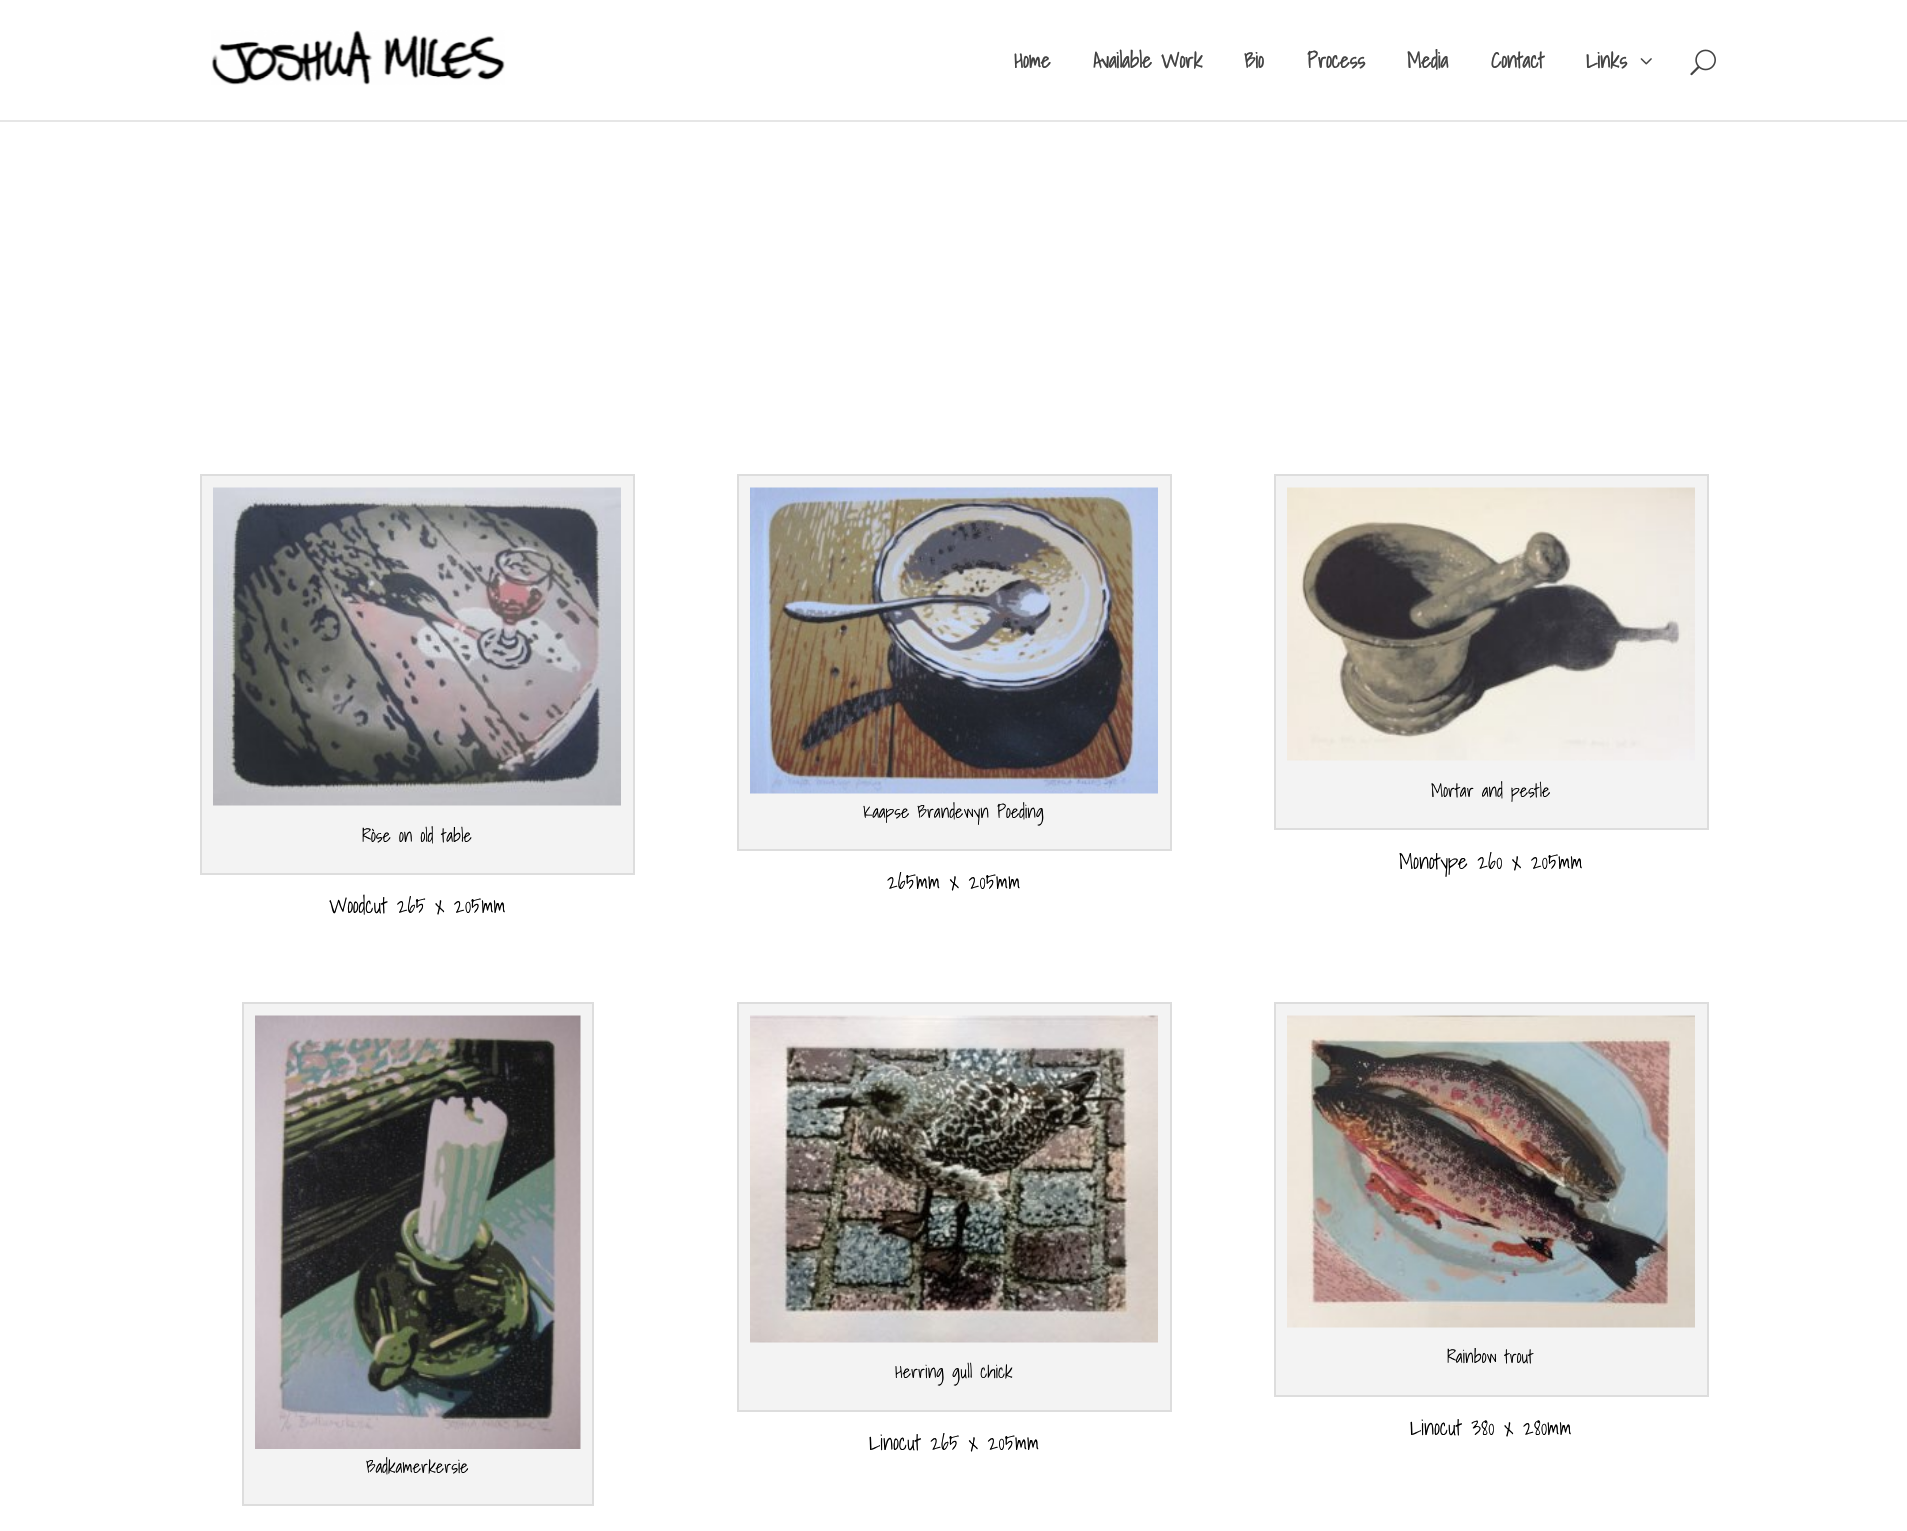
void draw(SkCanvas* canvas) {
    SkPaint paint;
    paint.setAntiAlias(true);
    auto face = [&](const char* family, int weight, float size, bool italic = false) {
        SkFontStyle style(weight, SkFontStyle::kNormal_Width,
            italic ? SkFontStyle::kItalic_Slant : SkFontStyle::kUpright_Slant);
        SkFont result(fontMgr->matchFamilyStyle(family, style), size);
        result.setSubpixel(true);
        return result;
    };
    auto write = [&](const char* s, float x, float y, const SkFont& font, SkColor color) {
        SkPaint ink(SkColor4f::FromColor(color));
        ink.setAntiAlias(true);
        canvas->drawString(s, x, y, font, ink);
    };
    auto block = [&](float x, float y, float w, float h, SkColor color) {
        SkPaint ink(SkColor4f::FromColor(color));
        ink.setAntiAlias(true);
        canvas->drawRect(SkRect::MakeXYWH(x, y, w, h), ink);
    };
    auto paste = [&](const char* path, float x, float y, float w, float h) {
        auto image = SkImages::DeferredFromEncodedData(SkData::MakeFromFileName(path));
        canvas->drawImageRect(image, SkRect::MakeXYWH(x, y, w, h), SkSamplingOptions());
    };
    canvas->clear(SK_ColorWHITE);
    block(0, 120, 1907, 2, SkColorSetRGB(230, 230, 230));
    paste("pic1.png", 211, 30, 294, 55);
    auto kFont1 = face("Shadows Into Light", 700, 21);
    write("Home", 1014, 68, kFont1, SkColorSetRGB(68, 68, 68));
    write("Available Work", 1093, 68, kFont1, SkColorSetRGB(68, 68, 68));
    write("Bio", 1244, 68, kFont1, SkColorSetRGB(68, 68, 68));
    write("Process", 1307, 68, kFont1, SkColorSetRGB(68, 68, 68));
    write("Media", 1407, 68, kFont1, SkColorSetRGB(68, 68, 68));
    write("Contact", 1491, 68, kFont1, SkColorSetRGB(68, 68, 68));
    write("Links", 1586, 68, kFont1, SkColorSetRGB(68, 68, 68));
    paste("pic2.png", 1640, 58, 12, 7);
    paste("pic3.png", 1690, 49, 26, 27);
    paint.setColor(SkColorSetRGB(243, 243, 243));
    canvas->drawRect(SkRect::MakeXYWH(201, 475, 433, 399), paint);
    paint.setStyle(SkPaint::kStroke_Style);
    paint.setStrokeWidth(2);
    paint.setColor(SkColorSetRGB(221, 221, 221));
    canvas->drawRect(SkRect::MakeXYWH(201, 475, 433, 399), paint);
    paste("pic4.png", 213, 487, 408, 319);
    auto kFont2 = face("Shadows Into Light", 300, 18);
    write("Ròse on old table", 362, 842, kFont2, SK_ColorBLACK);
    auto kFont3 = face("Shadows Into Light", 300, 21);
    write("Woodcut 265 x 205mm", 329, 913, kFont3, SK_ColorBLACK);
    paint.setStyle(SkPaint::kFill_Style);
    paint.setColor(SkColorSetRGB(243, 243, 243));
    canvas->drawRect(SkRect::MakeXYWH(738, 475, 433, 375), paint);
    paint.setStyle(SkPaint::kStroke_Style);
    paint.setColor(SkColorSetRGB(221, 221, 221));
    canvas->drawRect(SkRect::MakeXYWH(738, 475, 433, 375), paint);
    paste("pic5.png", 750, 487, 408, 307);
    write("Kaapse Brandewyn Poeding", 863, 818, kFont2, SK_ColorBLACK);
    write("265mm x 205mm", 887, 889, kFont3, SK_ColorBLACK);
    paint.setStyle(SkPaint::kFill_Style);
    paint.setColor(SkColorSetRGB(243, 243, 243));
    canvas->drawRect(SkRect::MakeXYWH(1275, 475, 433, 354), paint);
    paint.setStyle(SkPaint::kStroke_Style);
    paint.setColor(SkColorSetRGB(221, 221, 221));
    canvas->drawRect(SkRect::MakeXYWH(1275, 475, 433, 354), paint);
    paste("pic6.png", 1287, 487, 408, 274);
    write("Mortar and pestle", 1431, 797, kFont2, SK_ColorBLACK);
    write("Monotype 260 x 205mm", 1399, 869, kFont3, SK_ColorBLACK);
    paint.setStyle(SkPaint::kFill_Style);
    paint.setColor(SkColorSetRGB(243, 243, 243));
    canvas->drawRect(SkRect::MakeXYWH(738, 1003, 433, 408), paint);
    paint.setStyle(SkPaint::kStroke_Style);
    paint.setColor(SkColorSetRGB(221, 221, 221));
    canvas->drawRect(SkRect::MakeXYWH(738, 1003, 433, 408), paint);
    paste("pic7.png", 750, 1015, 408, 328);
    write("Herring gull chick", 895, 1378, kFont2, SK_ColorBLACK);
    write("Linocut 265 x 205mm", 869, 1450, kFont3, SK_ColorBLACK);
    paint.setStyle(SkPaint::kFill_Style);
    paint.setColor(SkColorSetRGB(243, 243, 243));
    canvas->drawRect(SkRect::MakeXYWH(1275, 1003, 433, 393), paint);
    paint.setStyle(SkPaint::kStroke_Style);
    paint.setColor(SkColorSetRGB(221, 221, 221));
    canvas->drawRect(SkRect::MakeXYWH(1275, 1003, 433, 393), paint);
    paste("pic8.png", 1287, 1015, 408, 313);
    write("Rainbow trout", 1447, 1363, kFont2, SK_ColorBLACK);
    write("Linocut 380 x 280mm", 1410, 1435, kFont3, SK_ColorBLACK);
    paint.setStyle(SkPaint::kFill_Style);
    paint.setColor(SkColorSetRGB(243, 243, 243));
    canvas->drawRect(SkRect::MakeXYWH(243, 1003, 350, 502), paint);
    paint.setStyle(SkPaint::kStroke_Style);
    paint.setColor(SkColorSetRGB(221, 221, 221));
    canvas->drawRect(SkRect::MakeXYWH(243, 1003, 350, 502), paint);
    paste("pic9.png", 255, 1015, 326, 434);
    write("Badkamerkersie", 366, 1473, kFont2, SK_ColorBLACK);
}
